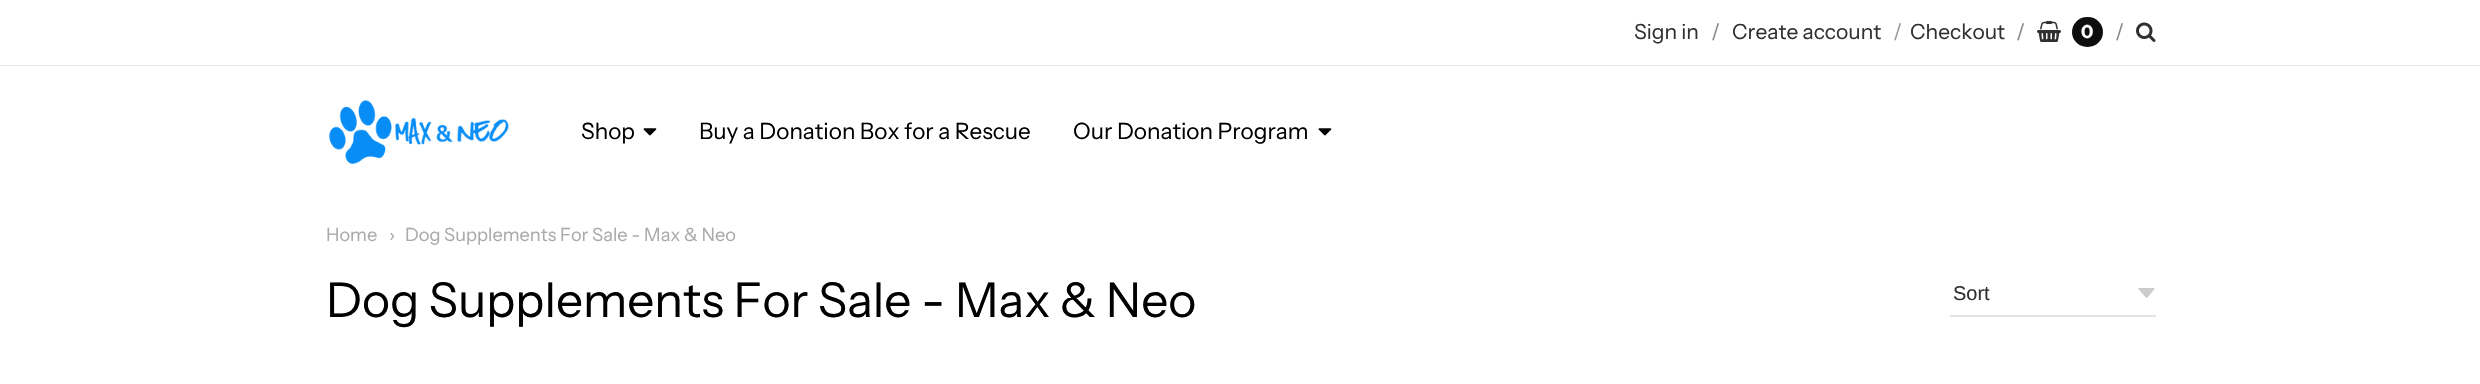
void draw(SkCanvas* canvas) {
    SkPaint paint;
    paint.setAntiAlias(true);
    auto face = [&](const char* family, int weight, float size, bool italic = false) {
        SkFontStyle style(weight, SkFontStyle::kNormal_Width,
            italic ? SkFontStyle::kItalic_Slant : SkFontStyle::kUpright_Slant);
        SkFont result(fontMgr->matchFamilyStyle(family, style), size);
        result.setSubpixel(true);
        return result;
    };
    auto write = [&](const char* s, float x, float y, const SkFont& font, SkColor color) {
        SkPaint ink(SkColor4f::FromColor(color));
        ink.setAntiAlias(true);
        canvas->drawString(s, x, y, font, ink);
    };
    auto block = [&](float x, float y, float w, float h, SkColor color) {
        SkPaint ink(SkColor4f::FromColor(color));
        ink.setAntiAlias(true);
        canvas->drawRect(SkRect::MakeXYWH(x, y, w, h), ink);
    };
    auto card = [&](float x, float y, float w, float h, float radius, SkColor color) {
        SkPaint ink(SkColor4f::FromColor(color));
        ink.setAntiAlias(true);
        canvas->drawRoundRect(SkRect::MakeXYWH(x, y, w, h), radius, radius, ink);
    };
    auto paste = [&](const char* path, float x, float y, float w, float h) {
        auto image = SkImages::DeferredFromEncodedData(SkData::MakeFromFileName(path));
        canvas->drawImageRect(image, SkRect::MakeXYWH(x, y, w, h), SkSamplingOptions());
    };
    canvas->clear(SK_ColorWHITE);
    block(0, 65, 2480, 1, SkColorSetRGB(234, 234, 234));
    auto kFont1 = face("Instrument Sans", 400, 21);
    write("Sign in", 1634, 39, kFont1, SkColorSetRGB(48, 48, 48));
    write("/", 1711, 39, kFont1, SkColorSetRGB(135, 135, 135));
    write("Create account", 1732, 39, kFont1, SkColorSetRGB(48, 48, 48));
    write("/", 1893, 39, kFont1, SkColorSetRGB(152, 152, 152));
    write("Checkout", 1910, 39, kFont1, SkColorSetRGB(48, 48, 48));
    write("/", 2016, 39, kFont1, SkColorSetRGB(135, 135, 135));
    paste("pic1.png", 2037, 21, 24, 21);
    card(2072, 17, 31, 30, 15, SkColorSetRGB(15, 14, 14));
    auto kFont2 = face("Instrument Sans", 700, 18);
    write("0", 2081, 38, kFont2, SK_ColorWHITE);
    write("/", 2115, 39, kFont1, SkColorSetRGB(135, 135, 135));
    paste("pic2.png", 2136, 22, 20, 20);
    paste("pic3.png", 328, 100, 181, 65);
    auto kFont3 = face("Instrument Sans", 400, 22.5f);
    write("Shop", 581, 139, kFont3, SK_ColorBLACK);
    paste("pic4.png", 643, 128, 14, 8);
    write("Buy a Donation Box for a Rescue", 699, 139, kFont3, SK_ColorBLACK);
    write("Our Donation Program", 1073, 139, kFont3, SK_ColorBLACK);
    paste("pic4.png", 1318, 128, 14, 8);
    auto kFont4 = face("Instrument Sans", 400, 18.25f);
    write("Home", 326, 241, kFont4, SkColorSetRGB(169, 170, 170));
    write("›", 389, 241, kFont4, SkColorSetRGB(169, 170, 170));
    write("Dog Supplements For Sale - Max & Neo", 405, 241, kFont4, SkColorSetRGB(169, 170, 170));
    auto kFont5 = face("Instrument Sans", 400, 48);
    write("Dog Supplements For Sale - Max & Neo", 326, 317, kFont5, SK_ColorBLACK);
    paste("pic5.png", 2138, 288, 17, 10);
    block(1950, 315, 206, 2, SkColorSetRGB(225, 227, 228));
    auto kFont6 = face("Liberation Sans", 400, 20);
    write("Sort", 1953, 300, kFont6, SkColorSetRGB(48, 48, 48));
}
